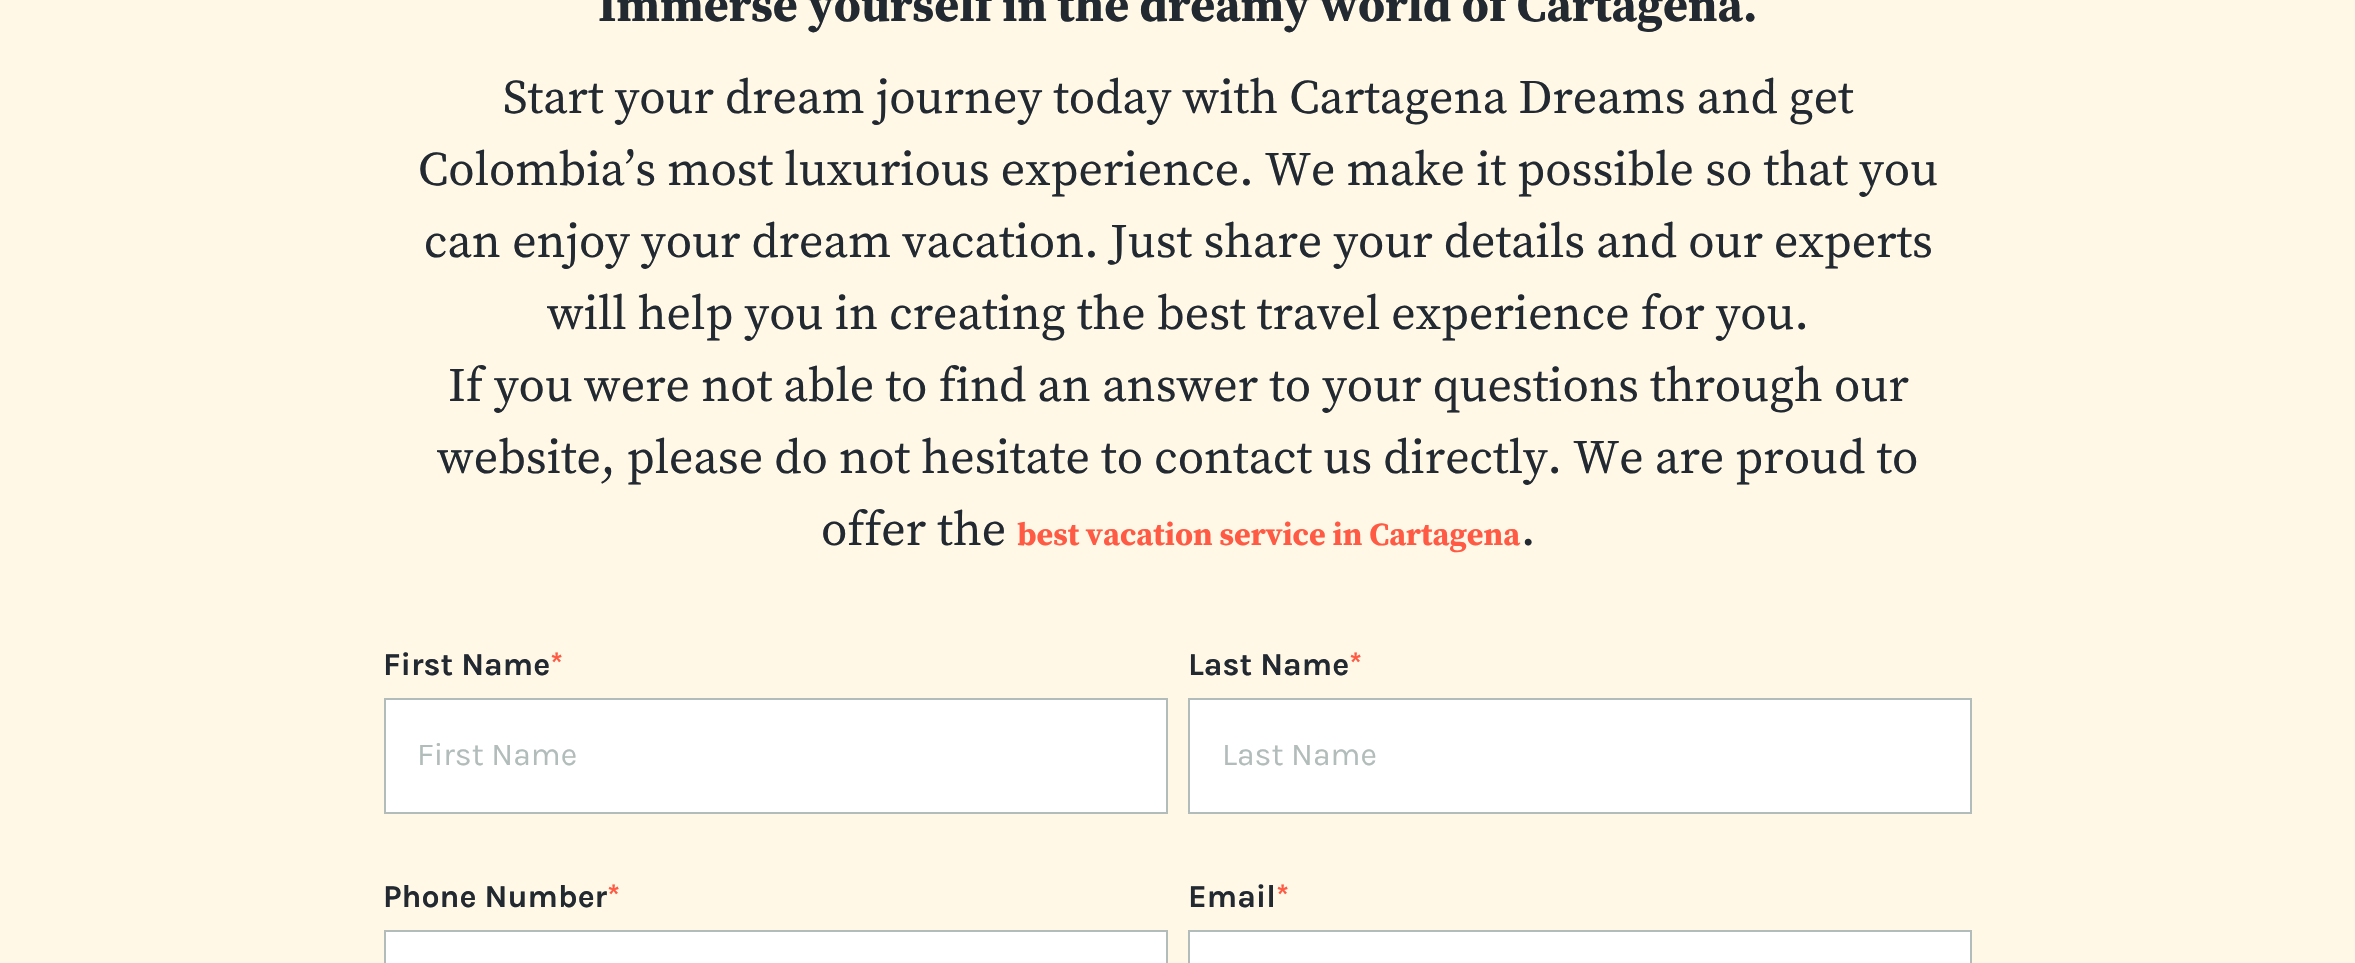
void draw(SkCanvas* canvas) {
    SkPaint paint;
    paint.setAntiAlias(true);
    auto face = [&](const char* family, int weight, float size, bool italic = false) {
        SkFontStyle style(weight, SkFontStyle::kNormal_Width,
            italic ? SkFontStyle::kItalic_Slant : SkFontStyle::kUpright_Slant);
        SkFont result(fontMgr->matchFamilyStyle(family, style), size);
        result.setSubpixel(true);
        return result;
    };
    auto write = [&](const char* s, float x, float y, const SkFont& font, SkColor color) {
        SkPaint ink(SkColor4f::FromColor(color));
        ink.setAntiAlias(true);
        canvas->drawString(s, x, y, font, ink);
    };
    canvas->clear(SkColorSetRGB(255, 248, 230));
    auto kFont1 = face("Source Serif Pro", 700, 48);
    write("Immerse yourself in the dreamy world of Cartagena.", 598, 21, kFont1, SkColorSetRGB(34, 41, 49));
    auto kFont2 = face("Source Serif Pro", 400, 48);
    write("Start your dream journey today with Cartagena Dreams and get", 503, 113, kFont2, SkColorSetRGB(34, 41, 49));
    write("Colombia’s most luxurious experience. We make it possible so that you", 418, 185, kFont2, SkColorSetRGB(34, 41, 49));
    write("can enjoy your dream vacation. Just share your details and our experts", 424, 257, kFont2, SkColorSetRGB(34, 41, 49));
    write("will help you in creating the best travel experience for you.", 547, 329, kFont2, SkColorSetRGB(34, 41, 49));
    write("If you were not able to find an answer to your questions through our", 448, 401, kFont2, SkColorSetRGB(34, 41, 49));
    write("website, please do not hesitate to contact us directly. We are proud to", 437, 473, kFont2, SkColorSetRGB(34, 41, 49));
    write("offer the", 821, 545, kFont2, SkColorSetRGB(34, 41, 49));
    auto kFont3 = face("Source Serif Pro", 700, 32);
    write("best vacation service in Cartagena", 1017, 545, kFont3, SkColorSetRGB(255, 90, 68));
    write(".", 1521, 545, kFont2, SkColorSetRGB(34, 41, 49));
    auto kFont4 = face("Karla", 700, 32);
    write("First Name", 383, 675, kFont4, SkColorSetRGB(34, 41, 49));
    write("*", 550, 675, kFont4, SkColorSetRGB(255, 90, 68));
    paint.setColor(SK_ColorWHITE);
    canvas->drawRect(SkRect::MakeXYWH(385, 699, 782, 114), paint);
    paint.setStyle(SkPaint::kStroke_Style);
    paint.setStrokeWidth(2);
    paint.setColor(SkColorSetRGB(178, 188, 186));
    canvas->drawRect(SkRect::MakeXYWH(385, 699, 782, 114), paint);
    auto kFont5 = face("Karla", 400, 32);
    write("First Name", 417, 765, kFont5, SkColorSetRGB(178, 188, 186));
    write("Last Name", 1188, 675, kFont4, SkColorSetRGB(34, 41, 49));
    write("*", 1349, 675, kFont4, SkColorSetRGB(255, 90, 68));
    paint.setStyle(SkPaint::kFill_Style);
    paint.setColor(SK_ColorWHITE);
    canvas->drawRect(SkRect::MakeXYWH(1189, 699, 782, 114), paint);
    paint.setStyle(SkPaint::kStroke_Style);
    paint.setColor(SkColorSetRGB(178, 188, 186));
    canvas->drawRect(SkRect::MakeXYWH(1189, 699, 782, 114), paint);
    write("Last Name", 1222, 765, kFont5, SkColorSetRGB(178, 188, 186));
    write("Phone Number", 383, 907, kFont4, SkColorSetRGB(34, 41, 49));
    write("*", 607, 907, kFont4, SkColorSetRGB(255, 90, 68));
    paint.setStyle(SkPaint::kFill_Style);
    paint.setColor(SK_ColorWHITE);
    canvas->drawRect(SkRect::MakeXYWH(385, 931, 782, 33), paint);
    paint.setStyle(SkPaint::kStroke_Style);
    paint.setColor(SkColorSetRGB(178, 188, 186));
    canvas->drawRect(SkRect::MakeXYWH(385, 931, 782, 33), paint);
    write("Email", 1188, 907, kFont4, SkColorSetRGB(34, 41, 49));
    write("*", 1276, 907, kFont4, SkColorSetRGB(255, 90, 68));
    paint.setStyle(SkPaint::kFill_Style);
    paint.setColor(SK_ColorWHITE);
    canvas->drawRect(SkRect::MakeXYWH(1189, 931, 782, 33), paint);
    paint.setStyle(SkPaint::kStroke_Style);
    paint.setColor(SkColorSetRGB(178, 188, 186));
    canvas->drawRect(SkRect::MakeXYWH(1189, 931, 782, 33), paint);
}
